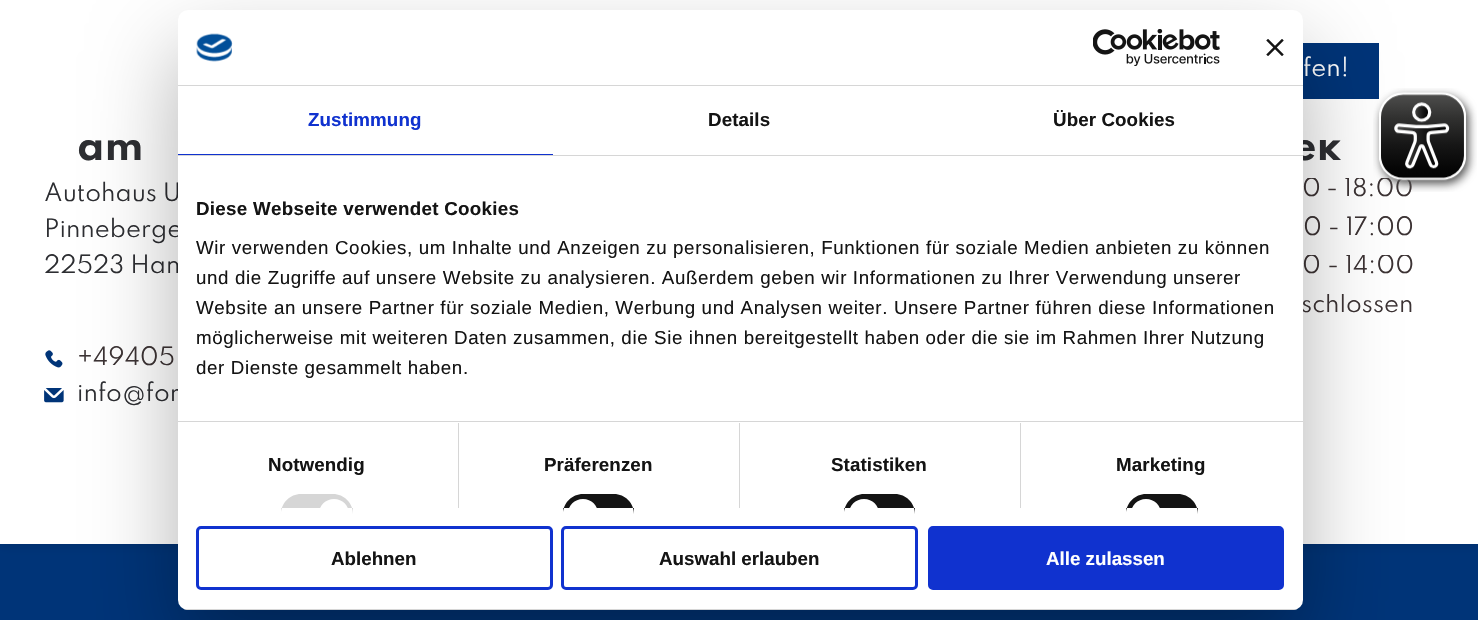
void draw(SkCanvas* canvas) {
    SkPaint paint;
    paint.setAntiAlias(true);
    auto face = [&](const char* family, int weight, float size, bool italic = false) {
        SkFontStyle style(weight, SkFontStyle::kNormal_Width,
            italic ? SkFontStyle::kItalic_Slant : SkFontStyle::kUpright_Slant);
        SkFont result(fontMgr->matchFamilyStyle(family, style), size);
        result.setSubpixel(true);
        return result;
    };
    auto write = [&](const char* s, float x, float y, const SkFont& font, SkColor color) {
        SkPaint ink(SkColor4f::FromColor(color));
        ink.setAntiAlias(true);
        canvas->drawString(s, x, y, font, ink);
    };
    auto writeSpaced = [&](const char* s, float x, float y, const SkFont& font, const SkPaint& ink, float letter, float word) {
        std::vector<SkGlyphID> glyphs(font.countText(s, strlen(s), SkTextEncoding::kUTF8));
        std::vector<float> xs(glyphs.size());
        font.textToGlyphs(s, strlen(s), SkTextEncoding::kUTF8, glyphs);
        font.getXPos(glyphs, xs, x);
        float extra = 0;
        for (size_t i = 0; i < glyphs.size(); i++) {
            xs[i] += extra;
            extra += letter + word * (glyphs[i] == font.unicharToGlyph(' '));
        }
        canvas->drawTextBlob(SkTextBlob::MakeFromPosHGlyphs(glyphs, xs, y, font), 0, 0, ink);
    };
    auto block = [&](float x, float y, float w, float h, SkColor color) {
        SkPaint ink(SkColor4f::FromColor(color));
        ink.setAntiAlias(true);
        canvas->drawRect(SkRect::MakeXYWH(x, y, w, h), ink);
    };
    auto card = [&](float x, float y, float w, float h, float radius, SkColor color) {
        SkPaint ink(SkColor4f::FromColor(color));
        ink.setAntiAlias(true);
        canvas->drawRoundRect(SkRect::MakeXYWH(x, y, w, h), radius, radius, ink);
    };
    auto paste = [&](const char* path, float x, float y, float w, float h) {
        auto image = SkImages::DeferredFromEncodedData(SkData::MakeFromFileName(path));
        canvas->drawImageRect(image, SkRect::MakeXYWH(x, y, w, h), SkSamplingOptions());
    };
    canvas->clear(SkColorSetRGB(0, 52, 120));
    paint.setColor(SkColorSetARGB(64, 0, 0, 0));
    paint.setMaskFilter(SkMaskFilter::MakeBlur(kNormal_SkBlurStyle, 7));
    canvas->drawRect(SkRect::MakeXYWH(0, 18, 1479, 522), paint);
    paint.setMaskFilter(nullptr);
    block(0, 140, 1478, 404, SK_ColorWHITE);
    auto kFont1 = face("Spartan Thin", 700, 38);
    write("ek", 1292, 160, kFont1, SkColorSetRGB(45, 46, 50));
    block(0, 0, 1478, 140, SK_ColorWHITE);
    block(1303, 43, 76, 56, SkColorSetRGB(0, 52, 120));
    auto kFont2 = face("Spartan Thin", 400, 22.5f);
    write("fen!", 1303, 76, kFont2, SK_ColorWHITE);
    write("am", 77, 160, kFont1, SkColorSetRGB(45, 46, 50));
    write("Autohaus U", 44, 201, kFont2, SkColorSetRGB(45, 46, 50));
    write("Pinneberge", 44, 237, kFont2, SkColorSetRGB(45, 46, 50));
    write("22523 Ham", 44, 273, kFont2, SkColorSetRGB(45, 46, 50));
    paste("pic1.png", 45, 350, 18, 18);
    write("+49405", 77, 365, kFont2, SkColorSetRGB(60, 51, 52));
    paste("pic2.png", 44, 388, 20, 15);
    write("info@for", 77, 401, kFont2, SkColorSetRGB(45, 46, 50));
    canvas->save();
    canvas->clipRect(SkRect::MakeXYWH(1108, 178, 306, 38));
    write("0", 1302, 196, kFont2, SkColorSetRGB(60, 51, 52));
    canvas->restore();
    write("-", 1326, 196, kFont2, SkColorSetRGB(60, 51, 52));
    canvas->save();
    canvas->clipRect(SkRect::MakeXYWH(1108, 178, 306, 38));
    write("18:00", 1344, 196, kFont2, SkColorSetRGB(60, 51, 52));
    canvas->restore();
    write("0 - 17:00", 1303, 235, kFont2, SkColorSetRGB(60, 51, 52));
    canvas->save();
    canvas->clipRect(SkRect::MakeXYWH(1108, 255, 306, 39));
    write("0", 1302, 273, kFont2, SkColorSetRGB(60, 51, 52));
    canvas->restore();
    write("-", 1327, 273, kFont2, SkColorSetRGB(60, 51, 52));
    canvas->save();
    canvas->clipRect(SkRect::MakeXYWH(1108, 255, 306, 39));
    write("14:00", 1345, 273, kFont2, SkColorSetRGB(60, 51, 52));
    canvas->restore();
    canvas->save();
    canvas->clipRect(SkRect::MakeXYWH(1108, 294, 306, 26));
    write("schlossen", 1301, 312, kFont2, SkColorSetRGB(60, 51, 52));
    canvas->restore();
    paint.setColor(SkColorSetARGB(77, 0, 0, 0));
    paint.setMaskFilter(SkMaskFilter::MakeBlur(kNormal_SkBlurStyle, 42.5f));
    canvas->drawRoundRect(SkRect::MakeXYWH(178, 50, 1125, 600), 10, 10, paint);
    paint.setMaskFilter(nullptr);
    paste("pic3.png", 1373, 88, 104, 104);
    card(178, 10, 1125, 600, 10, SK_ColorWHITE);
    block(178, 85, 1125, 1, SkColorSetRGB(214, 214, 214));
    paste("pic4.png", 196, 33, 37, 29);
    paste("pic5.png", 1093, 29, 127, 37);
    paste("pic6.png", 1266, 39, 18, 17);
    block(178, 155, 1125, 1, SkColorSetRGB(214, 214, 214));
    block(178, 154, 375, 1, SkColorSetRGB(16, 50, 207));
    auto kFont3 = face("Liberation Sans", 700, 18.75f);
    paint.setColor(SkColorSetRGB(16, 50, 207));
    writeSpaced("Zustimmung", 308, 126, kFont3, paint, 0.1f, 0);
    paint.setColor(SkColorSetRGB(20, 20, 20));
    writeSpaced("Details", 708, 126, kFont3, paint, 0.1f, 0);
    writeSpaced("Über Cookies", 1053, 126, kFont3, paint, 0.1f, 0);
    block(178, 421, 1125, 1, SkColorSetRGB(214, 214, 214));
    writeSpaced("Diese Webseite verwendet Cookies", 196, 215, kFont3, paint, 0.3f, 0);
    auto kFont4 = face("Liberation Sans", 400, 18.75f);
    writeSpaced("Wir verwenden Cookies, um Inhalte und Anzeigen zu personalisieren, Funktionen für soziale Medien anbieten zu können", 196, 254, kFont4, paint, 0.62f, 0);
    writeSpaced("und die Zugriffe auf unsere Website zu analysieren. Außerdem geben wir Informationen zu Ihrer Verwendung unserer", 196, 284, kFont4, paint, 0.62f, 0);
    writeSpaced("Website an unsere Partner für soziale Medien, Werbung und Analysen weiter. Unsere Partner führen diese Informationen", 196, 314, kFont4, paint, 0.62f, 0);
    writeSpaced("möglicherweise mit weiteren Daten zusammen, die Sie ihnen bereitgestellt haben oder die sie im Rahmen Ihrer Nutzung", 196, 344, kFont4, paint, 0.62f, 0);
    writeSpaced("der Dienste gesammelt haben.", 196, 374, kFont4, paint, 0.62f, 0);
    block(458, 423, 1, 85, SkColorSetRGB(214, 214, 214));
    writeSpaced("Notwendig", 268, 471, kFont3, paint, 0.1f, 0);
    paint.setColor(SkColorSetRGB(214, 214, 214));
    canvas->drawPath(SkPathBuilder().moveTo(301, 494).lineTo(333, 494).cubicTo(344, 494, 353, 503, 353, 514).lineTo(353, 508).lineTo(281, 508).lineTo(281, 514).cubicTo(281, 503, 290, 494, 301, 494).close().detach(), paint);
    paint.setColor(SK_ColorWHITE);
    canvas->drawPath(SkPathBuilder().moveTo(334, 499).cubicTo(342.5f, 499, 349, 505.5f, 349, 514).lineTo(349, 508).lineTo(319, 508).lineTo(319, 514).cubicTo(319, 505.5f, 325.5f, 499, 334, 499).close().detach(), paint);
    block(739, 423, 1, 85, SkColorSetRGB(214, 214, 214));
    paint.setColor(SkColorSetRGB(20, 20, 20));
    writeSpaced("Präferenzen", 544, 471, kFont3, paint, 0.1f, 0);
    canvas->drawPath(SkPathBuilder().moveTo(583, 494).lineTo(614, 494).cubicTo(625, 494, 634, 503, 634, 514).lineTo(634, 508).lineTo(563, 508).lineTo(563, 514).cubicTo(563, 503, 572, 494, 583, 494).close().detach(), paint);
    paint.setColor(SK_ColorWHITE);
    canvas->drawPath(SkPathBuilder().moveTo(583, 499).cubicTo(591.5f, 499, 598, 505.5f, 598, 514).lineTo(598, 508).lineTo(568, 508).lineTo(568, 514).cubicTo(568, 505.5f, 574.5f, 499, 583, 499).close().detach(), paint);
    block(1020, 423, 1, 85, SkColorSetRGB(214, 214, 214));
    paint.setColor(SkColorSetRGB(20, 20, 20));
    writeSpaced("Statistiken", 831, 471, kFont3, paint, 0.1f, 0);
    canvas->drawPath(SkPathBuilder().moveTo(864, 494).lineTo(895, 494).cubicTo(906, 494, 915, 503, 915, 514).lineTo(915, 508).lineTo(844, 508).lineTo(844, 514).cubicTo(844, 503, 853, 494, 864, 494).close().detach(), paint);
    paint.setColor(SK_ColorWHITE);
    canvas->drawPath(SkPathBuilder().moveTo(864, 499).cubicTo(872.5f, 499, 879, 505.5f, 879, 514).lineTo(879, 508).lineTo(849, 508).lineTo(849, 514).cubicTo(849, 505.5f, 855.5f, 499, 864, 499).close().detach(), paint);
    paint.setColor(SkColorSetRGB(20, 20, 20));
    writeSpaced("Marketing", 1116, 471, kFont3, paint, 0.1f, 0);
    canvas->drawPath(SkPathBuilder().moveTo(1146, 494).lineTo(1178, 494).cubicTo(1189, 494, 1198, 503, 1198, 514).lineTo(1198, 508).lineTo(1126, 508).lineTo(1126, 514).cubicTo(1126, 503, 1135, 494, 1146, 494).close().detach(), paint);
    paint.setColor(SK_ColorWHITE);
    canvas->drawPath(SkPathBuilder().moveTo(1146, 499).cubicTo(1154.5f, 499, 1161, 505.5f, 1161, 514).lineTo(1161, 508).lineTo(1131, 508).lineTo(1131, 514).cubicTo(1131, 505.5f, 1137.5f, 499, 1146, 499).close().detach(), paint);
    canvas->save();
    canvas->clipPath(SkPathBuilder().moveTo(188, 10).lineTo(1293, 10).cubicTo(1298.5f, 10, 1303, 14.5f, 1303, 20).lineTo(1303, 600).cubicTo(1303, 605.5f, 1298.5f, 610, 1293, 610).lineTo(188, 610).cubicTo(182.5f, 610, 178, 605.5f, 178, 600).lineTo(178, 20).cubicTo(178, 14.5f, 182.5f, 10, 188, 10).close().detach(), true);
    block(178, 609, 1125, 1, SkColorSetRGB(214, 214, 214));
    canvas->restore();
    paint.setStyle(SkPaint::kStroke_Style);
    paint.setStrokeWidth(3);
    paint.setColor(SkColorSetRGB(16, 50, 207));
    canvas->drawRoundRect(SkRect::MakeXYWH(197.5f, 527.5f, 354, 61), 3.5f, 3.5f, paint);
    write("Ablehnen", 331, 565, kFont3, SkColorSetRGB(20, 20, 20));
    canvas->drawRoundRect(SkRect::MakeXYWH(562.5f, 527.5f, 354, 61), 3.5f, 3.5f, paint);
    write("Auswahl erlauben", 659, 565, kFont3, SkColorSetRGB(20, 20, 20));
    paint.setStyle(SkPaint::kFill_Style);
    canvas->drawRoundRect(SkRect::MakeXYWH(929.5f, 527.5f, 353, 61), 3.5f, 3.5f, paint);
    paint.setStyle(SkPaint::kStroke_Style);
    canvas->drawRoundRect(SkRect::MakeXYWH(929.5f, 527.5f, 353, 61), 3.5f, 3.5f, paint);
    write("Alle zulassen", 1046, 565, kFont3, SK_ColorWHITE);
}
